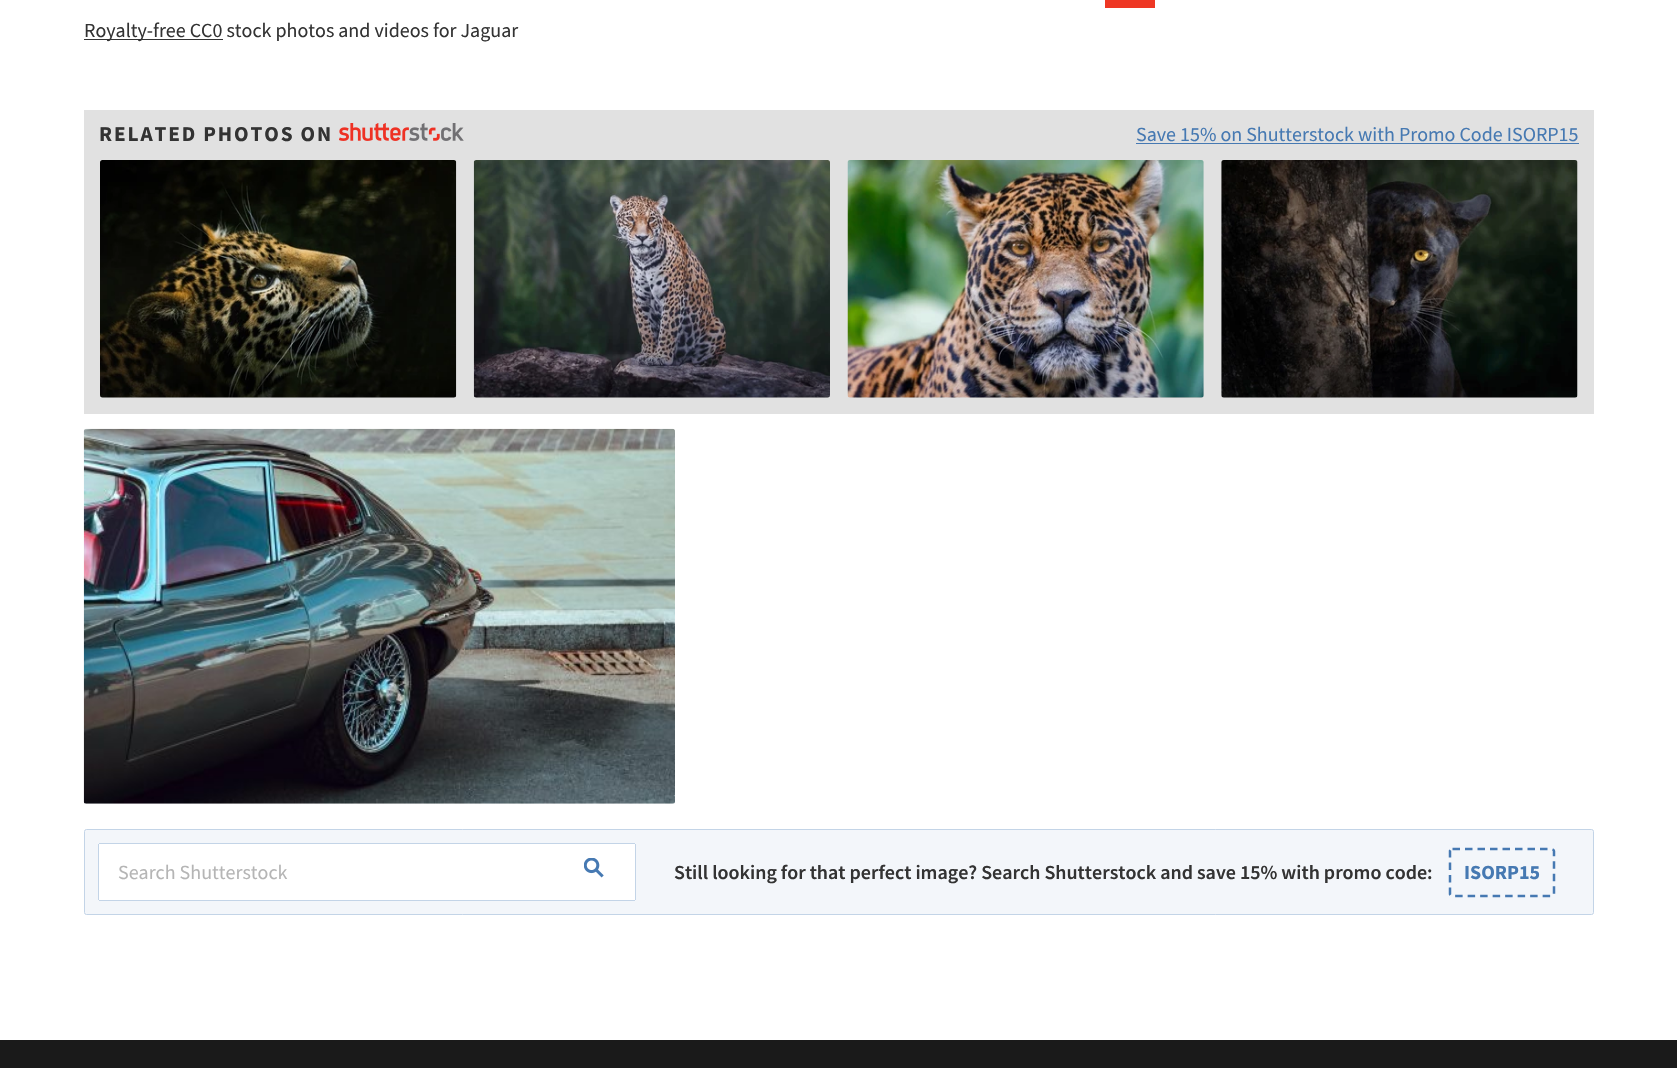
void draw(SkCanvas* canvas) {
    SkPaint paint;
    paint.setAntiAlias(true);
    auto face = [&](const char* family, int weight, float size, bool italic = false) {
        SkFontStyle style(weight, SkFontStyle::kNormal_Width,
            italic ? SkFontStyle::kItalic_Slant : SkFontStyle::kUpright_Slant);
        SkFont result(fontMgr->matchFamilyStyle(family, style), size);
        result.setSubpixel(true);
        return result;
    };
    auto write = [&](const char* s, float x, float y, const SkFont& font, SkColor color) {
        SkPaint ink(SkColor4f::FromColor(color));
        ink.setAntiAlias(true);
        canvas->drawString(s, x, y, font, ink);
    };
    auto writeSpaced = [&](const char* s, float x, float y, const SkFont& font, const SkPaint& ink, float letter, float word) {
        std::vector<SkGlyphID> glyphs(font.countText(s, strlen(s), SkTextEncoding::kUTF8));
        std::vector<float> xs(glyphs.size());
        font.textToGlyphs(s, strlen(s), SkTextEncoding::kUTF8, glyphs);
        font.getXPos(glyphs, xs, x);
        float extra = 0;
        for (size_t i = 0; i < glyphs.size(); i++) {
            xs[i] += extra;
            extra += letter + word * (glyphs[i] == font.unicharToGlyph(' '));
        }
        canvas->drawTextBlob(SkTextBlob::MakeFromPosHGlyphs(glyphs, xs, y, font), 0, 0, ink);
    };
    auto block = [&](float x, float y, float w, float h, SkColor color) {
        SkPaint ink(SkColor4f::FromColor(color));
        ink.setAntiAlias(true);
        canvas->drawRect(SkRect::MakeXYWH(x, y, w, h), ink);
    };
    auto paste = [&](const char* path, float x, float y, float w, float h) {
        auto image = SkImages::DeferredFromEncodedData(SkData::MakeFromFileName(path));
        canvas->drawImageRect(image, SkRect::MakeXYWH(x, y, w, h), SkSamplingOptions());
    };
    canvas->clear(SK_ColorWHITE);
    block(1105, 0, 50, 8, SkColorSetRGB(238, 55, 36));
    block(84, 39, 139, 1, SkColorSetRGB(51, 51, 51));
    auto kFont1 = face("Source Sans Pro", 400, 20);
    write("Royalty-free CC0 stock photos and videos for Jaguar", 84, 37, kFont1, SkColorSetRGB(51, 51, 51));
    block(84, 110, 1510, 304, SkColorSetRGB(225, 225, 225));
    auto kFont2 = face("Source Sans Pro", 700, 21.25f);
    paint.setColor(SkColorSetRGB(51, 51, 51));
    writeSpaced("RELATED PHOTOS ON", 99, 141, kFont2, paint, 1.9f, 0);
    paste("pic1.png", 339, 123, 125, 18);
    write("Save 15% on Shutterstock with Promo Code ISORP15", 1136, 141, kFont1, SkColorSetRGB(70, 121, 178));
    block(1136, 143, 443, 1, SkColorSetRGB(70, 121, 178));
    paste("pic2.png", 100, 160, 357, 238);
    paste("pic3.png", 473, 160, 357, 238);
    paste("pic4.png", 847, 160, 357, 238);
    paste("pic5.png", 1221, 160, 357, 238);
    paste("pic6.png", 83, 428, 592, 376);
    paint.setColor(SkColorSetRGB(243, 246, 250));
    canvas->drawRoundRect(SkRect::MakeXYWH(84.5f, 829.5f, 1509, 85), 2, 2, paint);
    paint.setStyle(SkPaint::kStroke_Style);
    paint.setStrokeWidth(1);
    paint.setColor(SkColorSetRGB(195, 212, 231));
    canvas->drawRoundRect(SkRect::MakeXYWH(84.5f, 829.5f, 1509, 85), 2, 2, paint);
    paint.setStyle(SkPaint::kFill_Style);
    paint.setColor(SK_ColorWHITE);
    canvas->drawPath(SkPathBuilder().moveTo(100.5f, 843).lineTo(553, 843).lineTo(553, 901).lineTo(100.5f, 901).cubicTo(99, 901, 98, 900, 98, 898.5f).lineTo(98, 845.5f).cubicTo(98, 844, 99, 843, 100.5f, 843).close().detach(), paint);
    block(99, 843, 454, 1, SkColorSetRGB(195, 212, 231));
    block(99, 900, 454, 1, SkColorSetRGB(195, 212, 231));
    block(98, 844, 1, 56, SkColorSetRGB(195, 212, 231));
    write("Search Shutterstock", 118, 879, kFont1, SkColorSetRGB(181, 181, 181));
    canvas->drawPath(SkPathBuilder().moveTo(553, 843).lineTo(633.5f, 843).cubicTo(635, 843, 636, 844, 636, 845.5f).lineTo(636, 898.5f).cubicTo(636, 900, 635, 901, 633.5f, 901).lineTo(553, 901).close().detach(), paint);
    block(553, 843, 82, 1, SkColorSetRGB(195, 212, 231));
    block(635, 844, 1, 56, SkColorSetRGB(195, 212, 231));
    block(553, 900, 82, 1, SkColorSetRGB(195, 212, 231));
    paste("pic7.png", 584, 858, 20, 20);
    auto kFont3 = face("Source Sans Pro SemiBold", 600, 20);
    write("Still looking for that perfect image? Search Shutterstock and save 15% with promo code:", 674, 879, kFont3, SkColorSetRGB(51, 51, 51));
    paint.setStyle(SkPaint::kStroke_Style);
    paint.setStrokeWidth(2.5f);
    paint.setColor(SkColorSetRGB(70, 121, 178));
    paint.setPathEffect(SkDashPathEffect::Make({{7.5f, 5}}, 0));
    canvas->drawPath(SkPathBuilder().moveTo(1452.5f, 849).lineTo(1551, 849).cubicTo(1552.5f, 849, 1554, 850, 1554, 851).lineTo(1554, 894).cubicTo(1554, 895, 1552.5f, 896, 1551, 896).lineTo(1452.5f, 896).cubicTo(1451, 896, 1450, 895, 1450, 894).lineTo(1450, 851).cubicTo(1450, 850, 1451, 849, 1452.5f, 849).close().detach(), paint);
    paint.setPathEffect(nullptr);
    auto kFont4 = face("Source Sans Pro", 700, 20);
    write("ISORP15", 1464, 879, kFont4, SkColorSetRGB(70, 121, 178));
    block(0, 1040, 1677, 28, SkColorSetRGB(26, 26, 26));
}
